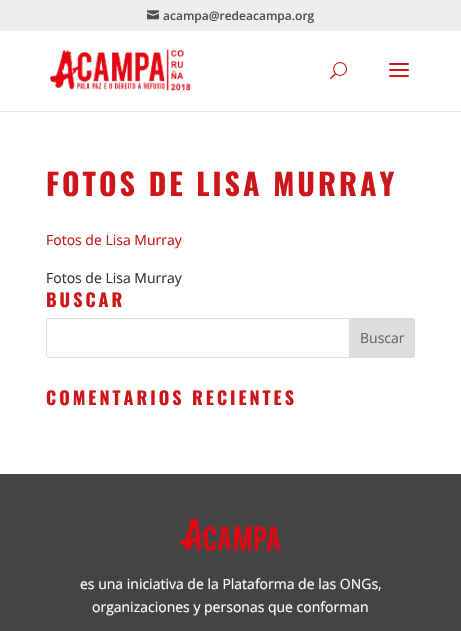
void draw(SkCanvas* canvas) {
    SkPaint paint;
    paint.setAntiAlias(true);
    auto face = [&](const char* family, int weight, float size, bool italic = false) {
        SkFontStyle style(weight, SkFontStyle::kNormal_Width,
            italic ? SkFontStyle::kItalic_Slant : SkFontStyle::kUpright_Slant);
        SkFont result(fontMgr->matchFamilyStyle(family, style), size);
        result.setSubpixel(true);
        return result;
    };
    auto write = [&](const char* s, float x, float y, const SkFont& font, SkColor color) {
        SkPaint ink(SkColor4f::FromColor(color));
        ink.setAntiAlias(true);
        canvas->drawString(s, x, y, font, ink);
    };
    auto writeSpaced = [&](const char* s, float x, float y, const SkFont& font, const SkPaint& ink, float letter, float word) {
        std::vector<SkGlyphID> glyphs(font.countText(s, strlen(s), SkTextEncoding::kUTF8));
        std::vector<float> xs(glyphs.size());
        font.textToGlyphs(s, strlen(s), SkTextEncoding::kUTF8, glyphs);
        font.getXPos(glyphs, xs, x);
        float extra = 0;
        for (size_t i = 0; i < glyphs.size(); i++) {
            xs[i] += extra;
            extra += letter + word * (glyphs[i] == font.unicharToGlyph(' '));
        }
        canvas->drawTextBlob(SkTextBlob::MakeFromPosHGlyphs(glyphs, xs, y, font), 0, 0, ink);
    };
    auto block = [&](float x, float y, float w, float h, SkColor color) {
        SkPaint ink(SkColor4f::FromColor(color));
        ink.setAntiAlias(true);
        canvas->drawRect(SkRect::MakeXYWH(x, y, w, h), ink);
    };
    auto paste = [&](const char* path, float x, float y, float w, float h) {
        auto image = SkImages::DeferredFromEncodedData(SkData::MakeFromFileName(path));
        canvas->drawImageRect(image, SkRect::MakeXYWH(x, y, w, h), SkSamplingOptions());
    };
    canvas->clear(SK_ColorWHITE);
    block(0, 0, 461, 31, SkColorSetRGB(238, 238, 238));
    paste("pic1.png", 147, 10, 12, 10);
    auto kFont1 = face("Open Sans", 600, 12);
    write("acampa@redeacampa.org", 163, 20, kFont1, SkColorSetRGB(79, 79, 79));
    block(0, 111, 461, 1, SkColorSetRGB(230, 230, 230));
    paste("pic2.png", 50, 49, 141, 42);
    paste("pic3.png", 330, 62, 17, 18);
    paste("pic4.png", 389, 63, 20, 14);
    auto kFont2 = face("Oswald", 700, 30);
    paint.setColor(SkColorSetRGB(205, 22, 25));
    writeSpaced("FOTOS DE LISA MURRAY", 46, 196, kFont2, paint, 3, 0);
    auto kFont3 = face("Open Sans", 400, 14);
    write("Fotos de Lisa Murray", 46, 245, kFont3, SkColorSetRGB(205, 22, 25));
    write("Fotos de Lisa Murray", 46, 283, kFont3, SkColorSetRGB(51, 51, 51));
    auto kFont4 = face("Oswald", 700, 18);
    writeSpaced("BUSCAR", 46, 307, kFont4, paint, 3, 0);
    paint.setStyle(SkPaint::kStroke_Style);
    paint.setStrokeWidth(1);
    paint.setColor(SkColorSetRGB(221, 221, 221));
    canvas->drawRoundRect(SkRect::MakeXYWH(46.5f, 318.5f, 368, 39), 2.5f, 2.5f, paint);
    paint.setStyle(SkPaint::kFill_Style);
    canvas->drawPath(SkPathBuilder().moveTo(349.5f, 318.5f).lineTo(412, 318.5f).cubicTo(413.5f, 318.5f, 414.5f, 319.5f, 414.5f, 321).lineTo(414.5f, 355).cubicTo(414.5f, 356.5f, 413.5f, 357.5f, 412, 357.5f).lineTo(349.5f, 357.5f).close().detach(), paint);
    paint.setStyle(SkPaint::kStroke_Style);
    canvas->drawPath(SkPathBuilder().moveTo(349.5f, 318.5f).lineTo(412, 318.5f).cubicTo(413.5f, 318.5f, 414.5f, 319.5f, 414.5f, 321).lineTo(414.5f, 355).cubicTo(414.5f, 356.5f, 413.5f, 357.5f, 412, 357.5f).lineTo(349.5f, 357.5f).close().detach(), paint);
    write("Buscar", 360, 343, kFont3, SkColorSetRGB(102, 102, 102));
    paint.setStyle(SkPaint::kFill_Style);
    paint.setColor(SkColorSetRGB(205, 22, 25));
    writeSpaced("COMENTARIOS RECIENTES", 46, 405, kFont4, paint, 3, 0);
    block(0, 474, 461, 157, SkColorSetRGB(68, 68, 68));
    paste("pic5.png", 180, 518, 100, 33);
    write("es una iniciativa de la Plataforma de las ONGs,", 80, 589, kFont3, SK_ColorWHITE);
    write("organizaciones y personas que conforman", 92, 612, kFont3, SK_ColorWHITE);
}
